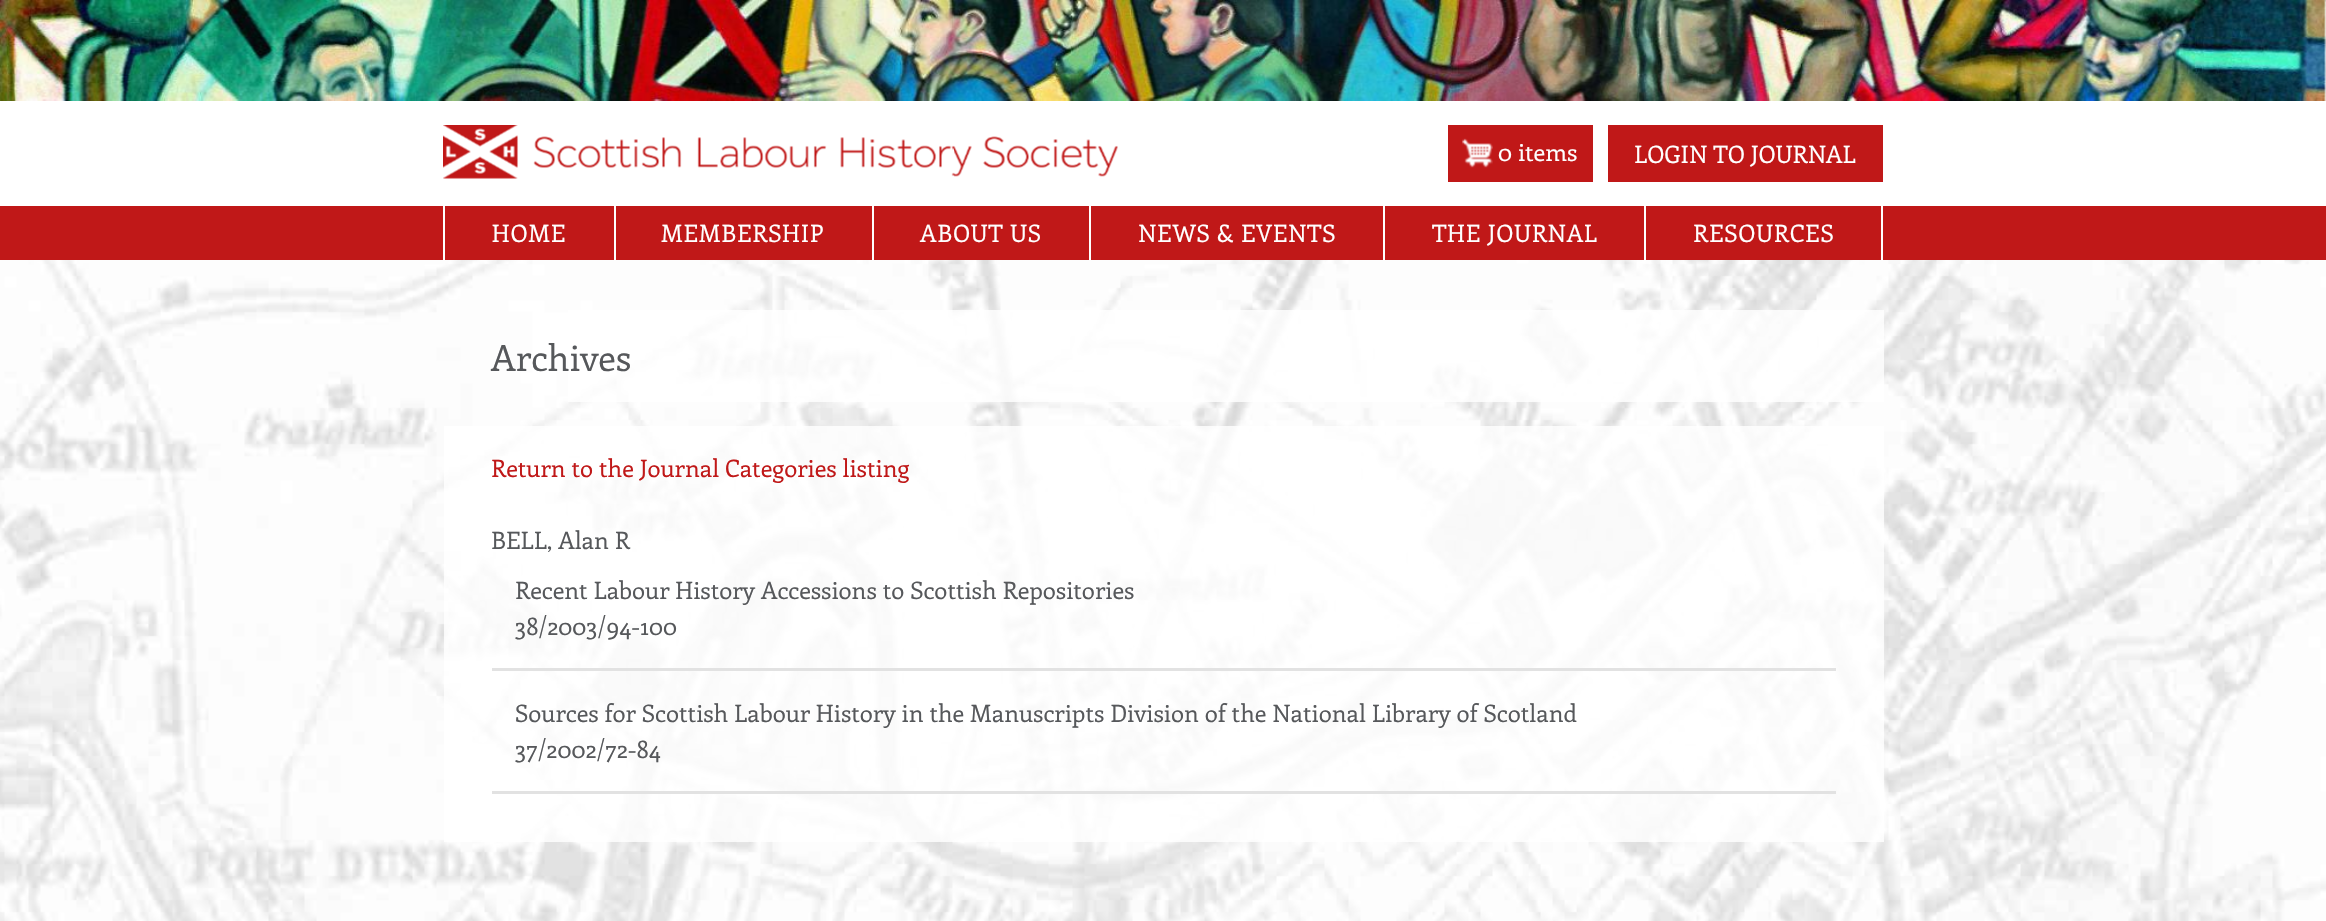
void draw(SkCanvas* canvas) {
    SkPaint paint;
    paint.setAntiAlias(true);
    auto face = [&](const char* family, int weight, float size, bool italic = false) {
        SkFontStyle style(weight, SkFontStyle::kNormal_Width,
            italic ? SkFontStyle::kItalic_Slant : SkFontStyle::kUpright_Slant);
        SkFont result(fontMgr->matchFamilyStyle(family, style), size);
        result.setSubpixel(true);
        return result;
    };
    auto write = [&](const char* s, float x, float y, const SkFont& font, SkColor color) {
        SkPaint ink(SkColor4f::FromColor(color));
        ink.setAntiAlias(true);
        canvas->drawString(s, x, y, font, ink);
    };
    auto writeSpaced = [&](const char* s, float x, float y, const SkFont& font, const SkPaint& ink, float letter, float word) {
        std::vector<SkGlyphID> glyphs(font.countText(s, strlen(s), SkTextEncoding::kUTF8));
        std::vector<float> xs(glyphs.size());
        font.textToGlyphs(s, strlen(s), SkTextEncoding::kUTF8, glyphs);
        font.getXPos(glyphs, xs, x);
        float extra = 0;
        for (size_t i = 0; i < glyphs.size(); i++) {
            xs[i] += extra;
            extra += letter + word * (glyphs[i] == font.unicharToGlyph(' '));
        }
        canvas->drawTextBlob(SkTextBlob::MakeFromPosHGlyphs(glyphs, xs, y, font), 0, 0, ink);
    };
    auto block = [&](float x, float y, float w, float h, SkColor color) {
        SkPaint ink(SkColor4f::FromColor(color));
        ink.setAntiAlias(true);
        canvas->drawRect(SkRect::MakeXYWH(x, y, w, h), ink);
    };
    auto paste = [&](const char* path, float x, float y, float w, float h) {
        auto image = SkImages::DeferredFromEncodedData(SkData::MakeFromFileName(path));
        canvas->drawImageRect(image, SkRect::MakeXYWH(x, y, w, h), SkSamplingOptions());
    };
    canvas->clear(SK_ColorWHITE);
    paste("pic1.png", 0, 0, 2326, 921);
    paste("pic2.png", 0, 0, 2326, 101);
    block(0, 101, 2326, 105, SK_ColorWHITE);
    paste("pic3.png", 443, 125, 675, 54);
    block(1448, 125, 145, 57, SkColorSetRGB(192, 24, 24));
    paste("pic4.png", 1462, 138, 31, 30);
    auto kFont1 = face("Enriqueta", 400, 24);
    write("0 items", 1498, 161, kFont1, SK_ColorWHITE);
    block(1608, 125, 275, 57, SkColorSetRGB(192, 24, 24));
    write("LOGIN TO JOURNAL", 1634, 163, kFont1, SK_ColorWHITE);
    block(0, 206, 2326, 54, SkColorSetRGB(192, 24, 24));
    block(614, 206, 2, 54, SK_ColorWHITE);
    block(443, 206, 2, 54, SK_ColorWHITE);
    paint.setColor(SK_ColorWHITE);
    writeSpaced("HOME", 492, 242, kFont1, paint, 0.75f, 0);
    block(872, 206, 2, 54, SK_ColorWHITE);
    writeSpaced("MEMBERSHIP", 661, 242, kFont1, paint, 0.75f, 0);
    block(1089, 206, 2, 54, SK_ColorWHITE);
    writeSpaced("ABOUT US", 920, 242, kFont1, paint, 0.75f, 0);
    block(1383, 206, 2, 54, SK_ColorWHITE);
    writeSpaced("NEWS & EVENTS", 1138, 242, kFont1, paint, 0.75f, 0);
    block(1644, 206, 2, 54, SK_ColorWHITE);
    writeSpaced("THE JOURNAL", 1432, 242, kFont1, paint, 0.75f, 0);
    block(1881, 206, 2, 54, SK_ColorWHITE);
    writeSpaced("RESOURCES", 1693, 242, kFont1, paint, 0.75f, 0);
    block(568, 310, 1316, 92, SkColorSetARGB(204, 255, 255, 255));
    auto kFont2 = face("Enriqueta", 400, 36);
    write("Archives", 491, 371, kFont2, SkColorSetRGB(86, 88, 91));
    block(444, 426, 1440, 416, SkColorSetARGB(204, 255, 255, 255));
    write("Return to the Journal Categories listing", 491, 477, kFont1, SkColorSetRGB(192, 24, 24));
    write("BELL, Alan R", 491, 549, kFont1, SkColorSetRGB(86, 88, 91));
    block(492, 668, 1344, 3, SkColorSetRGB(226, 226, 226));
    write("Recent Labour History Accessions to Scottish Repositories", 515, 599, kFont1, SkColorSetRGB(86, 88, 91));
    write("38/2003/94-100", 515, 635, kFont1, SkColorSetRGB(86, 88, 91));
    block(492, 791, 1344, 3, SkColorSetRGB(226, 226, 226));
    write("Sources for Scottish Labour History in the Manuscripts Division of the National Library of Scotland", 515, 722, kFont1, SkColorSetRGB(86, 88, 91));
    write("37/2002/72-84", 515, 758, kFont1, SkColorSetRGB(86, 88, 91));
}
